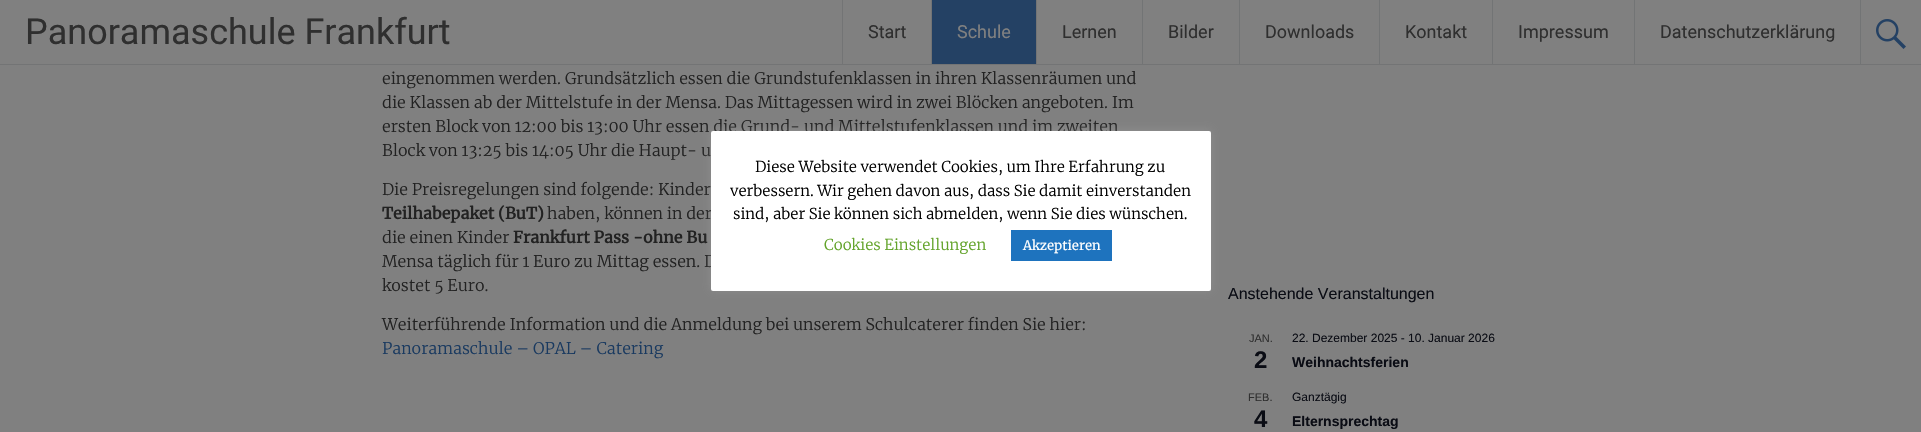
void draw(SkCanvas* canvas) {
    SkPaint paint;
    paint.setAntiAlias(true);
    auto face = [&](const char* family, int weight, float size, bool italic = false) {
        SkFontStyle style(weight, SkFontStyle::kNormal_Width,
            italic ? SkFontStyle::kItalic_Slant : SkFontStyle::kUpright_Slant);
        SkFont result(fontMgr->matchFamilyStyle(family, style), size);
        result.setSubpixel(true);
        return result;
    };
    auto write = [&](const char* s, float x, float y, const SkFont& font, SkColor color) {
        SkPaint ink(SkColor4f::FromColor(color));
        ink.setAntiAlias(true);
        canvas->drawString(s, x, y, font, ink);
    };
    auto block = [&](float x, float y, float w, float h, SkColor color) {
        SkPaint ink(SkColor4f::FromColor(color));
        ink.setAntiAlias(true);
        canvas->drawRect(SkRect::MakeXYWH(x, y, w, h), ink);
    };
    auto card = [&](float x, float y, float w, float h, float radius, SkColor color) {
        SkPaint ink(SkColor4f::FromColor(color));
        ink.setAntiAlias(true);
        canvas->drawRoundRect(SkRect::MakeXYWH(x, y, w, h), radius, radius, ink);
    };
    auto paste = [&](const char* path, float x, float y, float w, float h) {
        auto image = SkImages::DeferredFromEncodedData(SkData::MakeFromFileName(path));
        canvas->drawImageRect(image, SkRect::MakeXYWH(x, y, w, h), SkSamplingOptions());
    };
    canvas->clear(SkColorSetRGB(128, 128, 128));
    block(0, 64, 1921, 1, SkColorSetARGB(230, 113, 114, 115));
    auto kFont1 = face("Roboto", 400, 36);
    write("Panoramaschule Frankfurt", 25, 44, kFont1, SkColorSetRGB(47, 47, 47));
    block(842, 0, 1, 64, SkColorSetARGB(230, 113, 114, 115));
    auto kFont2 = face("Roboto", 400, 18);
    write("Start", 868, 38, kFont2, SkColorSetRGB(47, 47, 47));
    block(931, 0, 1, 64, SkColorSetARGB(230, 113, 114, 115));
    block(932, 0, 104, 64, SkColorSetARGB(230, 26, 58, 96));
    write("Schule", 957, 38, kFont2, SkColorSetRGB(128, 128, 128));
    block(1036, 0, 1, 64, SkColorSetARGB(230, 113, 114, 115));
    write("Lernen", 1062, 38, kFont2, SkColorSetRGB(47, 47, 47));
    block(1142, 0, 1, 64, SkColorSetRGB(114, 116, 117));
    write("Bilder", 1168, 38, kFont2, SkColorSetRGB(47, 47, 47));
    block(1239, 0, 1, 64, SkColorSetRGB(114, 116, 117));
    write("Downloads", 1265, 38, kFont2, SkColorSetRGB(47, 47, 47));
    block(1379, 0, 1, 64, SkColorSetRGB(114, 116, 117));
    write("Kontakt", 1405, 38, kFont2, SkColorSetRGB(47, 47, 47));
    block(1492, 0, 1, 64, SkColorSetRGB(114, 116, 117));
    write("Impressum", 1518, 38, kFont2, SkColorSetRGB(47, 47, 47));
    block(1634, 0, 1, 64, SkColorSetRGB(114, 116, 117));
    write("Datenschutzerklärung", 1660, 38, kFont2, SkColorSetRGB(47, 47, 47));
    block(1860, 0, 1, 64, SkColorSetRGB(114, 116, 117));
    paste("pic1.png", 1876, 19, 30, 30);
    auto kFont3 = face("Merriweather", 300, 16);
    write("eingenommen werden. Grundsätzlich essen die Grundstufenklassen in ihren Klassenräumen und", 382, 84, kFont3, SkColorSetRGB(34, 34, 34));
    write("die Klassen ab der Mittelstufe in der Mensa. Das Mittagessen wird in zwei Blöcken angeboten. Im", 382, 108, kFont3, SkColorSetRGB(34, 34, 34));
    write("ersten Block von 12:00 bis 13:00 Uhr essen die Grund- und Mittelstufenklassen und im zweiten", 382, 132, kFont3, SkColorSetRGB(34, 34, 34));
    write("Block von 13:25 bis 14:05 Uhr die Haupt- u", 382, 156, kFont3, SkColorSetRGB(34, 34, 34));
    write("Die Preisregelungen sind folgende: Kinder", 382, 195, kFont3, SkColorSetRGB(34, 34, 34));
    auto kFont4 = face("Merriweather", 700, 16);
    write("Teilhabepaket (BuT)", 382, 219, kFont4, SkColorSetRGB(34, 34, 34));
    write("haben, können in der", 547, 219, kFont3, SkColorSetRGB(34, 34, 34));
    write("die einen Kinder", 382, 243, kFont3, SkColorSetRGB(34, 34, 34));
    write("Frankfurt Pass -ohne Bu", 513, 243, kFont4, SkColorSetRGB(34, 34, 34));
    write("Mensa täglich für 1 Euro zu Mittag essen. D", 382, 267, kFont3, SkColorSetRGB(34, 34, 34));
    write("kostet 5 Euro.", 382, 291, kFont3, SkColorSetRGB(34, 34, 34));
    write("Weiterführende Information und die Anmeldung bei unserem Schulcaterer finden Sie hier:", 382, 330, kFont3, SkColorSetRGB(34, 34, 34));
    write("Panoramaschule – OPAL – Catering", 382, 354, kFont3, SkColorSetRGB(26, 58, 96));
    auto kFont5 = face("Liberation Sans", 400, 16);
    write("Anstehende Veranstaltungen", 1228, 299, kFont5, SkColorSetRGB(10, 12, 20));
    auto kFont6 = face("Liberation Sans", 400, 11);
    write("JAN.", 1249, 342, kFont6, SkColorSetRGB(47, 47, 47));
    auto kFont7 = face("Liberation Sans", 700, 24);
    write("2", 1254, 368, kFont7, SkColorSetRGB(10, 12, 20));
    auto kFont8 = face("Liberation Sans", 400, 12);
    write("22. Dezember 2025 - 10. Januar 2026", 1292, 342, kFont8, SkColorSetRGB(10, 12, 20));
    auto kFont9 = face("Liberation Sans", 700, 14);
    write("Weihnachtsferien", 1292, 367, kFont9, SkColorSetRGB(10, 12, 20));
    write("FEB.", 1248, 401, kFont6, SkColorSetRGB(47, 47, 47));
    write("4", 1254, 427, kFont7, SkColorSetRGB(10, 12, 20));
    write("Ganztägig", 1292, 401, kFont8, SkColorSetRGB(10, 12, 20));
    write("Elternsprechtag", 1292, 426, kFont9, SkColorSetRGB(10, 12, 20));
    paint.setColor(SkColorSetARGB(77, 172, 171, 171));
    paint.setMaskFilter(SkMaskFilter::MakeBlur(kNormal_SkBlurStyle, 5));
    canvas->drawRoundRect(SkRect::MakeXYWH(711, 130, 500, 160), 2, 2, paint);
    paint.setMaskFilter(nullptr);
    card(711, 131, 500, 160, 2, SK_ColorWHITE);
    auto kFont10 = face("Merriweather", 300, 15);
    write("Diese Website verwendet Cookies, um Ihre Erfahrung zu", 755, 172, kFont10, SK_ColorBLACK);
    write("verbessern. Wir gehen davon aus, dass Sie damit einverstanden", 730, 196, kFont10, SK_ColorBLACK);
    write("sind, aber Sie können sich abmelden, wenn Sie dies wünschen.", 733, 219, kFont10, SK_ColorBLACK);
    write("Cookies Einstellungen", 824, 250, kFont10, SkColorSetRGB(98, 163, 41));
    block(1011, 230, 101, 31, SkColorSetRGB(30, 115, 190));
    auto kFont11 = face("Merriweather", 400, 13);
    write("Akzeptieren", 1023, 250, kFont11, SK_ColorWHITE);
}
